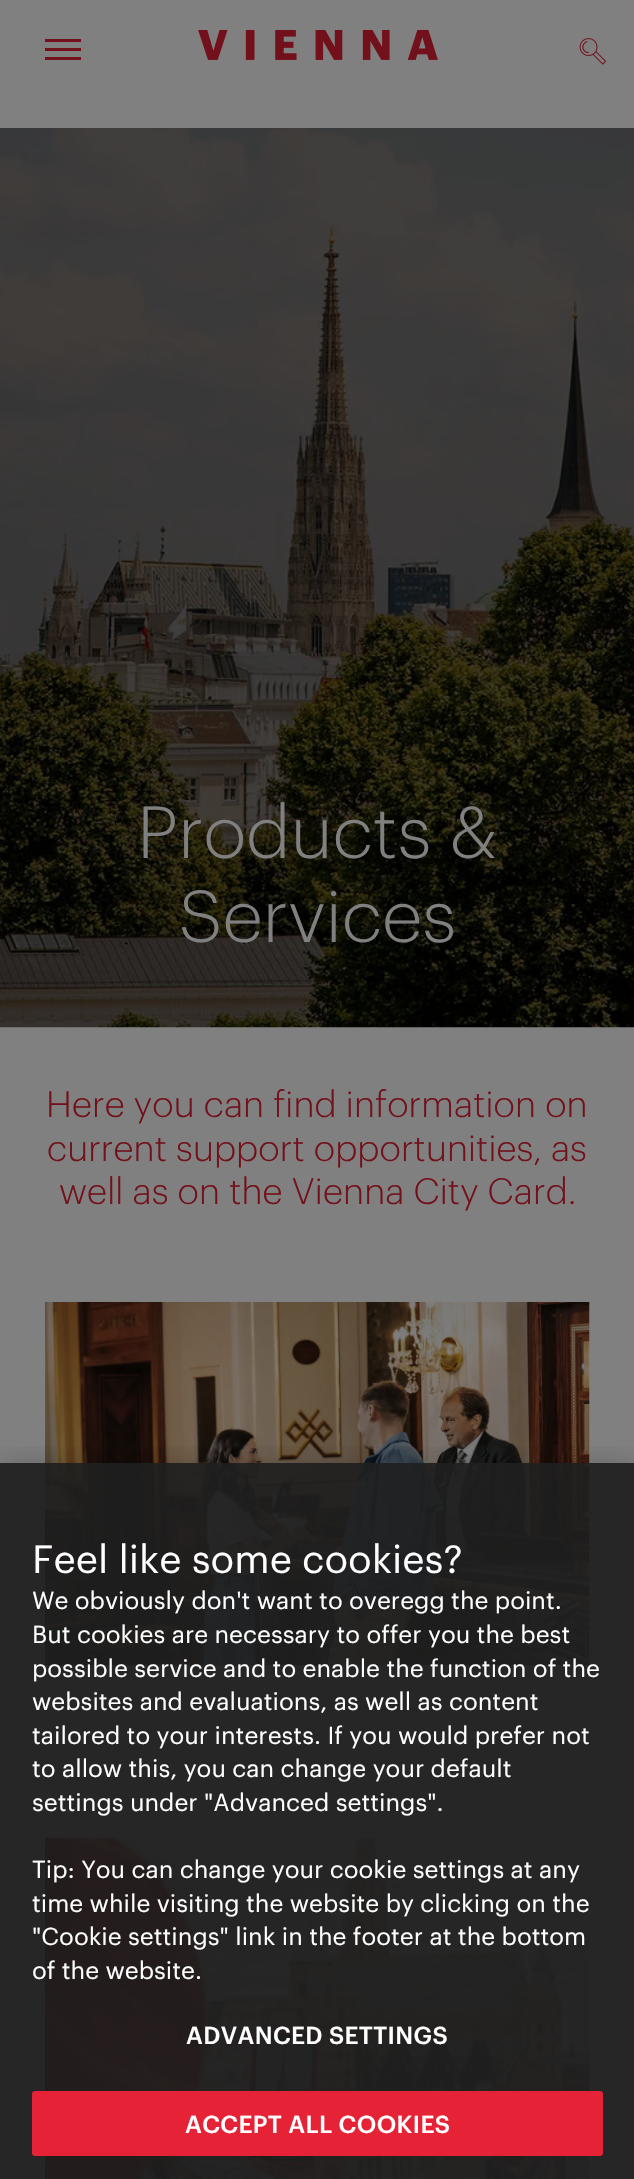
void draw(SkCanvas* canvas) {
    SkPaint paint;
    paint.setAntiAlias(true);
    auto face = [&](const char* family, int weight, float size, bool italic = false) {
        SkFontStyle style(weight, SkFontStyle::kNormal_Width,
            italic ? SkFontStyle::kItalic_Slant : SkFontStyle::kUpright_Slant);
        SkFont result(fontMgr->matchFamilyStyle(family, style), size);
        result.setSubpixel(true);
        return result;
    };
    auto write = [&](const char* s, float x, float y, const SkFont& font, SkColor color) {
        SkPaint ink(SkColor4f::FromColor(color));
        ink.setAntiAlias(true);
        canvas->drawString(s, x, y, font, ink);
    };
    auto writeSpaced = [&](const char* s, float x, float y, const SkFont& font, const SkPaint& ink, float letter, float word) {
        std::vector<SkGlyphID> glyphs(font.countText(s, strlen(s), SkTextEncoding::kUTF8));
        std::vector<float> xs(glyphs.size());
        font.textToGlyphs(s, strlen(s), SkTextEncoding::kUTF8, glyphs);
        font.getXPos(glyphs, xs, x);
        float extra = 0;
        for (size_t i = 0; i < glyphs.size(); i++) {
            xs[i] += extra;
            extra += letter + word * (glyphs[i] == font.unicharToGlyph(' '));
        }
        canvas->drawTextBlob(SkTextBlob::MakeFromPosHGlyphs(glyphs, xs, y, font), 0, 0, ink);
    };
    auto block = [&](float x, float y, float w, float h, SkColor color) {
        SkPaint ink(SkColor4f::FromColor(color));
        ink.setAntiAlias(true);
        canvas->drawRect(SkRect::MakeXYWH(x, y, w, h), ink);
    };
    auto card = [&](float x, float y, float w, float h, float radius, SkColor color) {
        SkPaint ink(SkColor4f::FromColor(color));
        ink.setAntiAlias(true);
        canvas->drawRoundRect(SkRect::MakeXYWH(x, y, w, h), radius, radius, ink);
    };
    auto paste = [&](const char* path, float x, float y, float w, float h) {
        auto image = SkImages::DeferredFromEncodedData(SkData::MakeFromFileName(path));
        canvas->drawImageRect(image, SkRect::MakeXYWH(x, y, w, h), SkSamplingOptions());
    };
    canvas->clear(SkColorSetRGB(128, 128, 128));
    block(45, 48, 36, 3, SkColorSetRGB(115, 17, 27));
    block(45, 39, 36, 3, SkColorSetRGB(115, 17, 27));
    block(45, 57, 36, 3, SkColorSetRGB(115, 17, 27));
    paste("pic1.png", 198, 30, 240, 30);
    paste("pic2.png", 579, 38, 27, 27);
    paste("pic3.png", 0, 128, 634, 900);
    auto kFont1 = face("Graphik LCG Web", 300, 72);
    write("Products &", 137, 858, kFont1, SkColorSetRGB(128, 128, 128));
    write("Services", 179, 942, kFont1, SkColorSetRGB(128, 128, 128));
    auto kFont2 = face("Graphik LCG Web", 300, 36);
    write("Here you can find information on", 46, 1117, kFont2, SkColorSetRGB(115, 17, 27));
    write("current support opportunities, as", 47, 1161, kFont2, SkColorSetRGB(115, 17, 27));
    write("well as on the Vienna City Card.", 59, 1204, kFont2, SkColorSetRGB(115, 17, 27));
    paste("pic4.png", 45, 1302, 545, 363);
    paste("pic5.png", 45, 1837, 545, 342);
    canvas->save();
    canvas->clipRect(SkRect::MakeXYWH(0, 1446, 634, 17));
    paint.setColor(SkColorSetARGB(51, 0, 0, 0));
    paint.setMaskFilter(SkMaskFilter::MakeBlur(kNormal_SkBlurStyle, 13.5f));
    canvas->drawRect(SkRect::MakeXYWH(0, 1463, 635, 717), paint);
    paint.setMaskFilter(nullptr);
    canvas->restore();
    block(0, 1463, 634, 716, SkColorSetARGB(235, 30, 30, 30));
    auto kFont3 = face("Graphik LCG Web", 400, 38.4f);
    write("Feel like some cookies?", 32, 1573, kFont3, SK_ColorWHITE);
    auto kFont4 = face("Graphik LCG Web", 400, 24);
    write("We obviously don't want to overegg the point.", 32, 1609, kFont4, SK_ColorWHITE);
    write("But cookies are necessary to offer you the best", 32, 1643, kFont4, SK_ColorWHITE);
    write("possible service and to enable the function of the", 32, 1677, kFont4, SK_ColorWHITE);
    write("websites and evaluations, as well as content", 32, 1710, kFont4, SK_ColorWHITE);
    write("tailored to your interests. If you would prefer not", 32, 1744, kFont4, SK_ColorWHITE);
    write("to allow this, you can change your default", 32, 1777, kFont4, SK_ColorWHITE);
    write("settings under \"Advanced settings\".", 32, 1811, kFont4, SK_ColorWHITE);
    write("Tip: You can change your cookie settings at any", 32, 1878, kFont4, SK_ColorWHITE);
    write("time while visiting the website by clicking on the", 32, 1912, kFont4, SK_ColorWHITE);
    write("\"Cookie settings\" link in the footer at the bottom", 32, 1945, kFont4, SK_ColorWHITE);
    write("of the website.", 32, 1979, kFont4, SK_ColorWHITE);
    auto kFont5 = face("Graphik LCG Web", 500, 24);
    paint.setColor(SK_ColorWHITE);
    writeSpaced("ADVANCED SETTINGS", 186, 2044, kFont5, paint, 0.25f, 0);
    card(32, 2091, 571, 65, 3, SkColorSetRGB(229, 34, 54));
    writeSpaced("ACCEPT ALL COOKIES", 185, 2133, kFont5, paint, 0.25f, 0);
}
